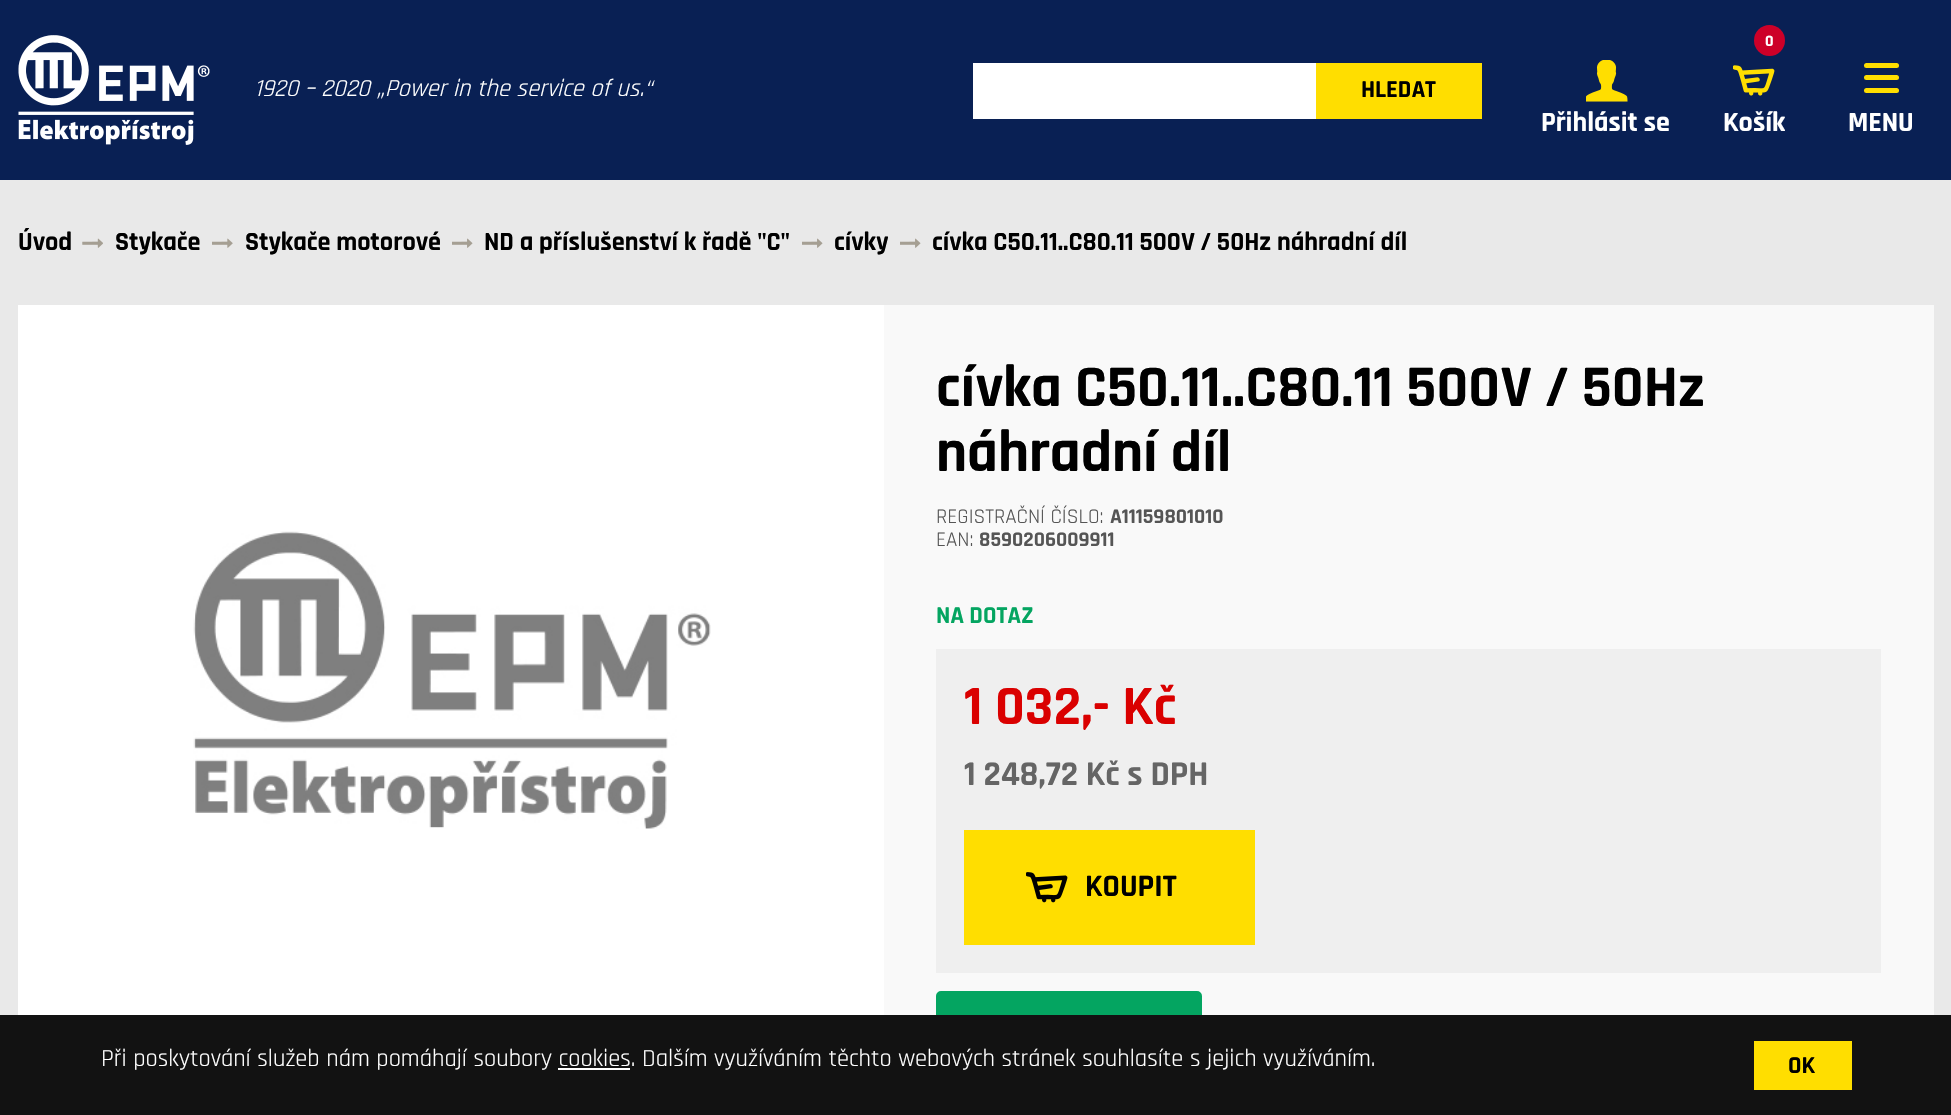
void draw(SkCanvas* canvas) {
    SkPaint paint;
    paint.setAntiAlias(true);
    auto face = [&](const char* family, int weight, float size, bool italic = false) {
        SkFontStyle style(weight, SkFontStyle::kNormal_Width,
            italic ? SkFontStyle::kItalic_Slant : SkFontStyle::kUpright_Slant);
        SkFont result(fontMgr->matchFamilyStyle(family, style), size);
        result.setSubpixel(true);
        return result;
    };
    auto write = [&](const char* s, float x, float y, const SkFont& font, SkColor color) {
        SkPaint ink(SkColor4f::FromColor(color));
        ink.setAntiAlias(true);
        canvas->drawString(s, x, y, font, ink);
    };
    auto block = [&](float x, float y, float w, float h, SkColor color) {
        SkPaint ink(SkColor4f::FromColor(color));
        ink.setAntiAlias(true);
        canvas->drawRect(SkRect::MakeXYWH(x, y, w, h), ink);
    };
    auto card = [&](float x, float y, float w, float h, float radius, SkColor color) {
        SkPaint ink(SkColor4f::FromColor(color));
        ink.setAntiAlias(true);
        canvas->drawRoundRect(SkRect::MakeXYWH(x, y, w, h), radius, radius, ink);
    };
    auto paste = [&](const char* path, float x, float y, float w, float h) {
        auto image = SkImages::DeferredFromEncodedData(SkData::MakeFromFileName(path));
        canvas->drawImageRect(image, SkRect::MakeXYWH(x, y, w, h), SkSamplingOptions());
    };
    canvas->clear(SkColorSetRGB(233, 233, 233));
    block(0, 0, 1951, 180, SkColorSetRGB(9, 32, 84));
    paste("pic1.png", 18, 35, 192, 110);
    auto kFont1 = face("Rajdhani", 400, 24.5f, true);
    write("1920 – 2020 „Power in the service of us.“", 254, 96, kFont1, SK_ColorWHITE);
    block(973, 63, 343, 56, SK_ColorWHITE);
    block(1316, 63, 166, 56, SkColorSetRGB(255, 222, 0));
    auto kFont2 = face("Rajdhani", 700, 24.5f);
    write("HLEDAT", 1361, 97, kFont2, SK_ColorBLACK);
    paste("pic2.png", 1586, 60, 42, 42);
    auto kFont3 = face("Rajdhani", 700, 28);
    write("Přihlásit se", 1541, 131, kFont3, SK_ColorWHITE);
    paint.setColor(SkColorSetRGB(205, 0, 40));
    canvas->drawCircle(1769.5f, 40.5f, 15.5f, paint);
    auto kFont4 = face("Rajdhani", 700, 16);
    write("0", 1765, 46, kFont4, SK_ColorWHITE);
    paste("pic3.png", 1733, 65, 42, 31);
    write("Košík", 1723, 131, kFont3, SK_ColorWHITE);
    card(1864, 75, 35, 5, 2.5f, SkColorSetRGB(255, 222, 0));
    card(1864, 63, 35, 5, 2.5f, SkColorSetRGB(255, 222, 0));
    card(1864, 88, 35, 5, 2.5f, SkColorSetRGB(255, 222, 0));
    write("MENU", 1848, 131, kFont3, SK_ColorWHITE);
    auto kFont5 = face("Rajdhani", 700, 26.25f);
    write("Úvod", 18, 250, kFont5, SK_ColorBLACK);
    paste("pic4.png", 82, 238, 21, 10);
    write("Stykače", 115, 250, kFont5, SK_ColorBLACK);
    paste("pic5.png", 212, 238, 21, 10);
    write("Stykače motorové", 245, 250, kFont5, SK_ColorBLACK);
    paste("pic6.png", 452, 238, 21, 10);
    write("ND a příslušenství k řadě \"C\"", 484, 250, kFont5, SK_ColorBLACK);
    paste("pic6.png", 802, 238, 21, 10);
    write("cívky", 834, 250, kFont5, SK_ColorBLACK);
    paste("pic6.png", 900, 238, 21, 10);
    write("cívka C50.11..C80.11 500V / 50Hz náhradní díl", 932, 250, kFont5, SK_ColorBLACK);
    block(18, 305, 866, 710, SK_ColorWHITE);
    paste("pic7.png", 193, 531, 518, 298);
    block(884, 305, 1050, 710, SkColorSetRGB(249, 249, 249));
    auto kFont6 = face("Rajdhani", 700, 59.5f);
    write("cívka C50.11..C80.11 500V / 50Hz", 936, 406, kFont6, SK_ColorBLACK);
    write("náhradní díl", 936, 471, kFont6, SK_ColorBLACK);
    auto kFont7 = face("Rajdhani", 400, 21);
    write("REGISTRAČNÍ ČÍSLO:", 936, 523, kFont7, SkColorSetRGB(85, 85, 85));
    auto kFont8 = face("Rajdhani", 700, 21);
    write("A11159801010", 1110, 523, kFont8, SkColorSetRGB(85, 85, 85));
    write("EAN:", 936, 546, kFont7, SkColorSetRGB(85, 85, 85));
    write("8590206009911", 979, 546, kFont8, SkColorSetRGB(85, 85, 85));
    write("NA DOTAZ", 936, 623, kFont2, SkColorSetRGB(4, 165, 97));
    block(936, 649, 945, 324, SkColorSetRGB(239, 239, 239));
    auto kFont9 = face("Rajdhani", 700, 56);
    write("1 032,- Kč", 964, 724, kFont9, SkColorSetRGB(218, 0, 0));
    auto kFont10 = face("Rajdhani", 700, 35);
    write("1 248,72 Kč s DPH", 964, 785, kFont10, SkColorSetRGB(101, 101, 101));
    block(964, 830, 291, 115, SkColorSetRGB(255, 222, 0));
    paste("pic8.png", 1026, 872, 42, 31);
    auto kFont11 = face("Rajdhani", 700, 31.5f);
    write("KOUPIT", 1085, 896, kFont11, SK_ColorBLACK);
    paint.setColor(SkColorSetRGB(4, 165, 97));
    canvas->drawRoundRect(SkRect::MakeXYWH(937, 992, 264, 59), 4, 4, paint);
    paint.setStyle(SkPaint::kStroke_Style);
    paint.setStrokeWidth(2);
    canvas->drawRoundRect(SkRect::MakeXYWH(937, 992, 264, 59), 4, 4, paint);
    block(0, 1015, 1951, 100, SkColorSetRGB(18, 18, 18));
    auto kFont12 = face("Rajdhani", 400, 24.5f);
    write("Při poskytování služeb nám pomáhají soubory cookies. Dalším využíváním těchto webových stránek souhlasíte s jejich využíváním.", 101, 1066, kFont12, SK_ColorWHITE);
    block(558, 1068, 72, 2, SK_ColorWHITE);
    block(1754, 1041, 98, 49, SkColorSetRGB(255, 222, 0));
    write("OK", 1788, 1073, kFont2, SK_ColorBLACK);
}
